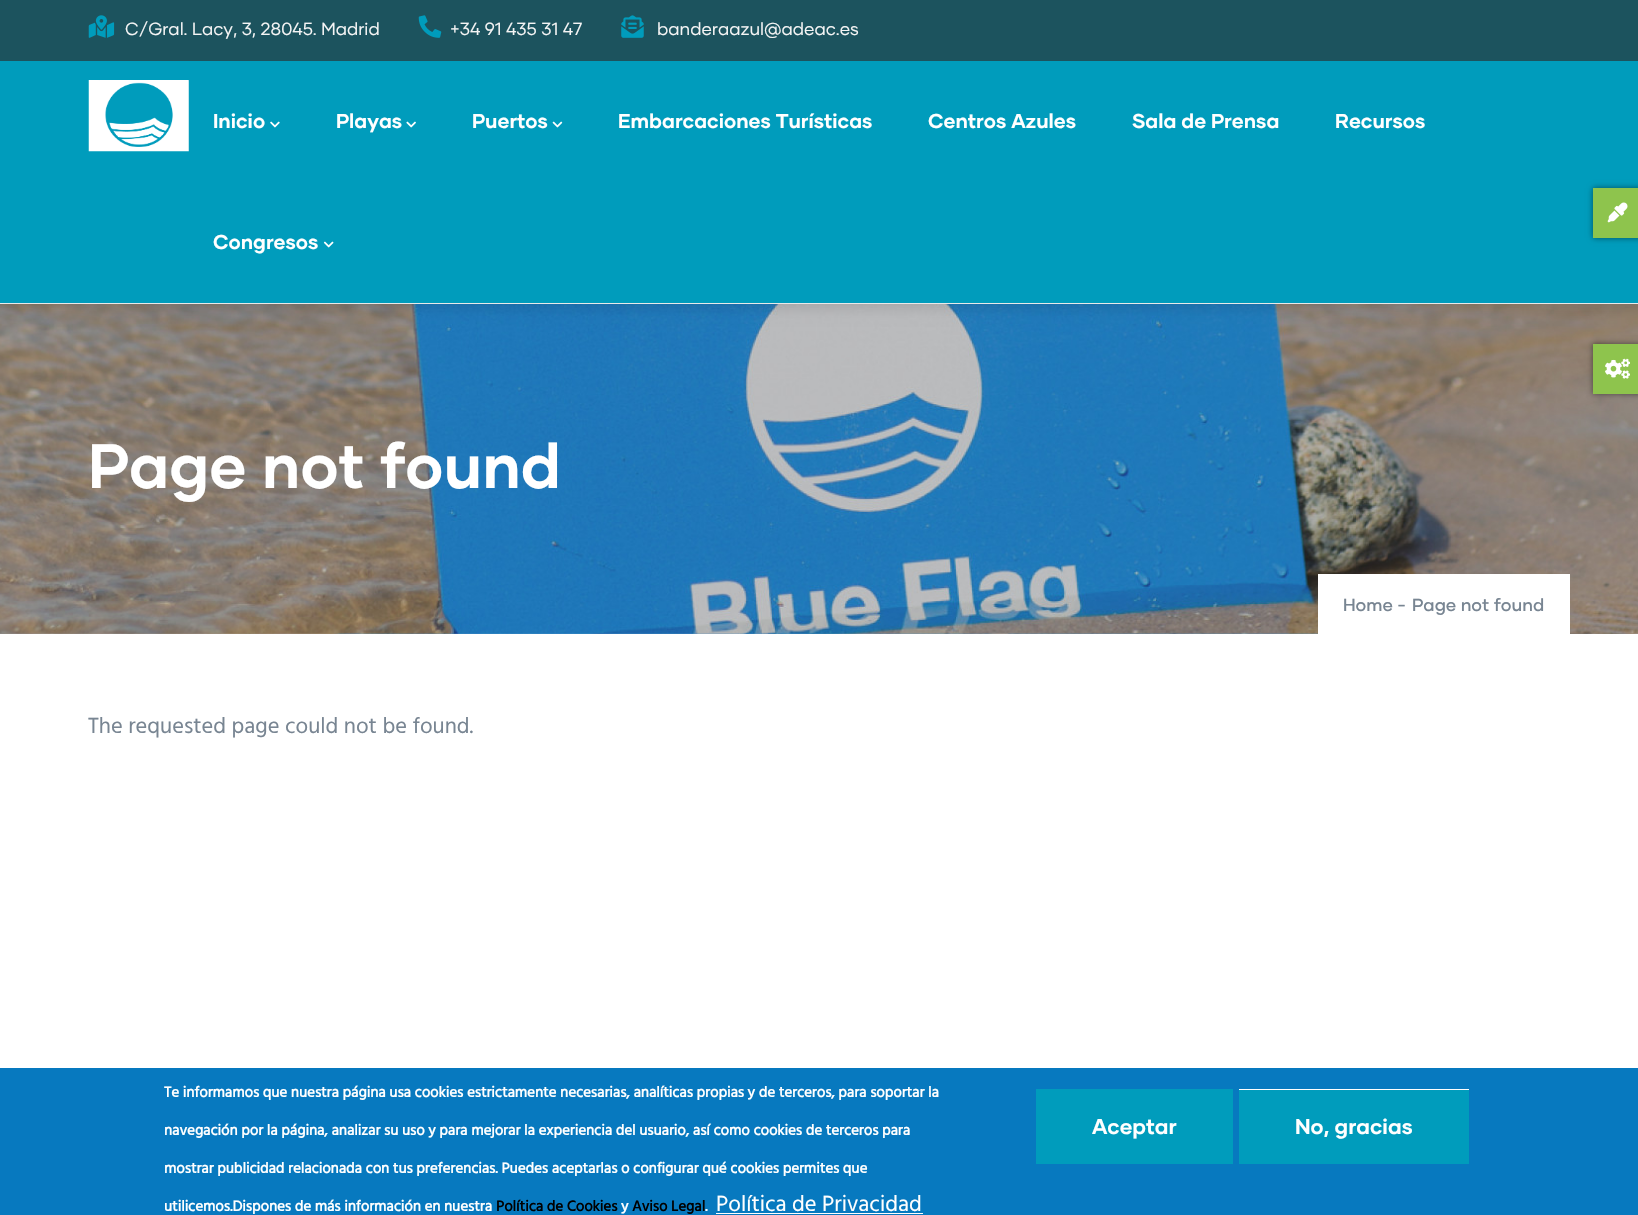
void draw(SkCanvas* canvas) {
    SkPaint paint;
    paint.setAntiAlias(true);
    auto face = [&](const char* family, int weight, float size, bool italic = false) {
        SkFontStyle style(weight, SkFontStyle::kNormal_Width,
            italic ? SkFontStyle::kItalic_Slant : SkFontStyle::kUpright_Slant);
        SkFont result(fontMgr->matchFamilyStyle(family, style), size);
        result.setSubpixel(true);
        return result;
    };
    auto write = [&](const char* s, float x, float y, const SkFont& font, SkColor color) {
        SkPaint ink(SkColor4f::FromColor(color));
        ink.setAntiAlias(true);
        canvas->drawString(s, x, y, font, ink);
    };
    auto block = [&](float x, float y, float w, float h, SkColor color) {
        SkPaint ink(SkColor4f::FromColor(color));
        ink.setAntiAlias(true);
        canvas->drawRect(SkRect::MakeXYWH(x, y, w, h), ink);
    };
    auto paste = [&](const char* path, float x, float y, float w, float h) {
        auto image = SkImages::DeferredFromEncodedData(SkData::MakeFromFileName(path));
        canvas->drawImageRect(image, SkRect::MakeXYWH(x, y, w, h), SkSamplingOptions());
    };
    canvas->clear(SK_ColorWHITE);
    paste("pic9.png", 0, 633, 1638, 1);
    paste("pic10.png", 0, 304, 1638, 330);
    paint.setColor(SkColorSetARGB(26, 0, 0, 0));
    paint.setMaskFilter(SkMaskFilter::MakeBlur(kNormal_SkBlurStyle, 6));
    canvas->drawRect(SkRect::MakeXYWH(-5, -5, 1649, 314), paint);
    paint.setMaskFilter(nullptr);
    block(0, 303, 1, 1, SkColorSetRGB(235, 235, 235));
    block(0, 0, 1638, 61, SkColorSetRGB(28, 83, 94));
    paste("pic1.png", 88, 15, 27, 23);
    auto kFont1 = face("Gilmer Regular", 400, 17.5f);
    write("C/Gral. Lacy, 3, 28045. Madrid", 125, 35, kFont1, SkColorSetRGB(245, 245, 245));
    paste("pic2.png", 418, 15, 24, 23);
    write("+34 91 435 31 47", 450, 35, kFont1, SkColorSetRGB(245, 245, 245));
    paste("pic3.png", 621, 15, 23, 23);
    write("banderaazul@adeac.es", 657, 35, kFont1, SkColorSetRGB(245, 245, 245));
    block(0, 61, 1638, 242, SkColorSetRGB(0, 156, 188));
    paste("pic4.png", 88, 80, 101, 72);
    auto kFont2 = face("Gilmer", 700, 20);
    write("Inicio", 213, 128, kFont2, SK_ColorWHITE);
    paste("pic5.png", 270, 121, 10, 7);
    write("Playas", 336, 128, kFont2, SK_ColorWHITE);
    paste("pic6.png", 406, 121, 10, 7);
    write("Puertos", 472, 128, kFont2, SK_ColorWHITE);
    paste("pic7.png", 552, 121, 11, 7);
    write("Embarcaciones Turísticas", 618, 128, kFont2, SK_ColorWHITE);
    write("Centros Azules", 928, 128, kFont2, SK_ColorWHITE);
    write("Sala de Prensa", 1132, 128, kFont2, SK_ColorWHITE);
    write("Recursos", 1335, 128, kFont2, SK_ColorWHITE);
    write("Congresos", 213, 249, kFont2, SK_ColorWHITE);
    paste("pic8.png", 323, 241, 11, 7);
    auto kFont3 = face("Gilmer", 700, 62.5f);
    write("Page not found", 88, 488, kFont3, SK_ColorWHITE);
    block(1318, 574, 252, 60, SK_ColorWHITE);
    auto kFont4 = face("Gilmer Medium", 500, 17.5f);
    write("Home -", 1343, 611, kFont4, SkColorSetRGB(120, 133, 146));
    write("Page not found", 1412, 611, kFont4, SkColorSetRGB(120, 133, 146));
    auto kFont5 = face("Hind", 400, 22.5f);
    write("The requested page could not be found.", 88, 733, kFont5, SkColorSetRGB(120, 133, 146));
    paint.setColor(SkColorSetARGB(128, 0, 0, 0));
    paint.setMaskFilter(SkMaskFilter::MakeBlur(kNormal_SkBlurStyle, 3));
    canvas->drawRect(SkRect::MakeXYWH(1593, 188, 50, 50), paint);
    paint.setMaskFilter(nullptr);
    block(1593, 188, 45, 50, SkColorSetRGB(142, 196, 77));
    paste("pic11.png", 1607, 202, 21, 21);
    paint.setMaskFilter(SkMaskFilter::MakeBlur(kNormal_SkBlurStyle, 3));
    canvas->drawRect(SkRect::MakeXYWH(1593, 344, 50, 50), paint);
    paint.setMaskFilter(nullptr);
    block(1593, 344, 45, 50, SkColorSetRGB(142, 196, 77));
    paste("pic12.png", 1605, 358, 25, 21);
    block(0, 1068, 1638, 147, SkColorSetRGB(7, 121, 191));
    auto kFont6 = face("Hind", 700, 15);
    write("Te informamos que nuestra página usa cookies estrictamente necesarias, analíticas propias y de terceros, para soportar la", 164, 1097, kFont6, SK_ColorWHITE);
    write("navegación por la página, analizar su uso y para mejorar la experiencia del usuario, así como cookies de terceros para", 164, 1135, kFont6, SK_ColorWHITE);
    write("mostrar publicidad relacionada con tus preferencias. Puedes aceptarlas o configurar qué cookies permites que", 164, 1173, kFont6, SK_ColorWHITE);
    write("utilicemos.Dispones de más información en nuestra", 164, 1211, kFont6, SK_ColorWHITE);
    write("Política de Cookies", 496, 1211, kFont6, SK_ColorBLACK);
    write("y", 621, 1211, kFont6, SK_ColorWHITE);
    write("Aviso Legal", 632, 1211, kFont6, SK_ColorBLACK);
    write(".", 705, 1211, kFont6, SK_ColorWHITE);
    write("Política de Privacidad", 716, 1211, kFont5, SK_ColorWHITE);
    block(716, 1213, 207, 1, SK_ColorWHITE);
    block(1036, 1089, 197, 75, SkColorSetRGB(0, 156, 188));
    auto kFont7 = face("Gilmer", 700, 21.25f);
    write("Aceptar", 1092, 1134, kFont7, SK_ColorWHITE);
    block(1239, 1090, 230, 74, SkColorSetRGB(0, 156, 188));
    block(1239, 1089, 230, 1, SK_ColorWHITE);
    write("No, gracias", 1295, 1134, kFont7, SK_ColorWHITE);
}
